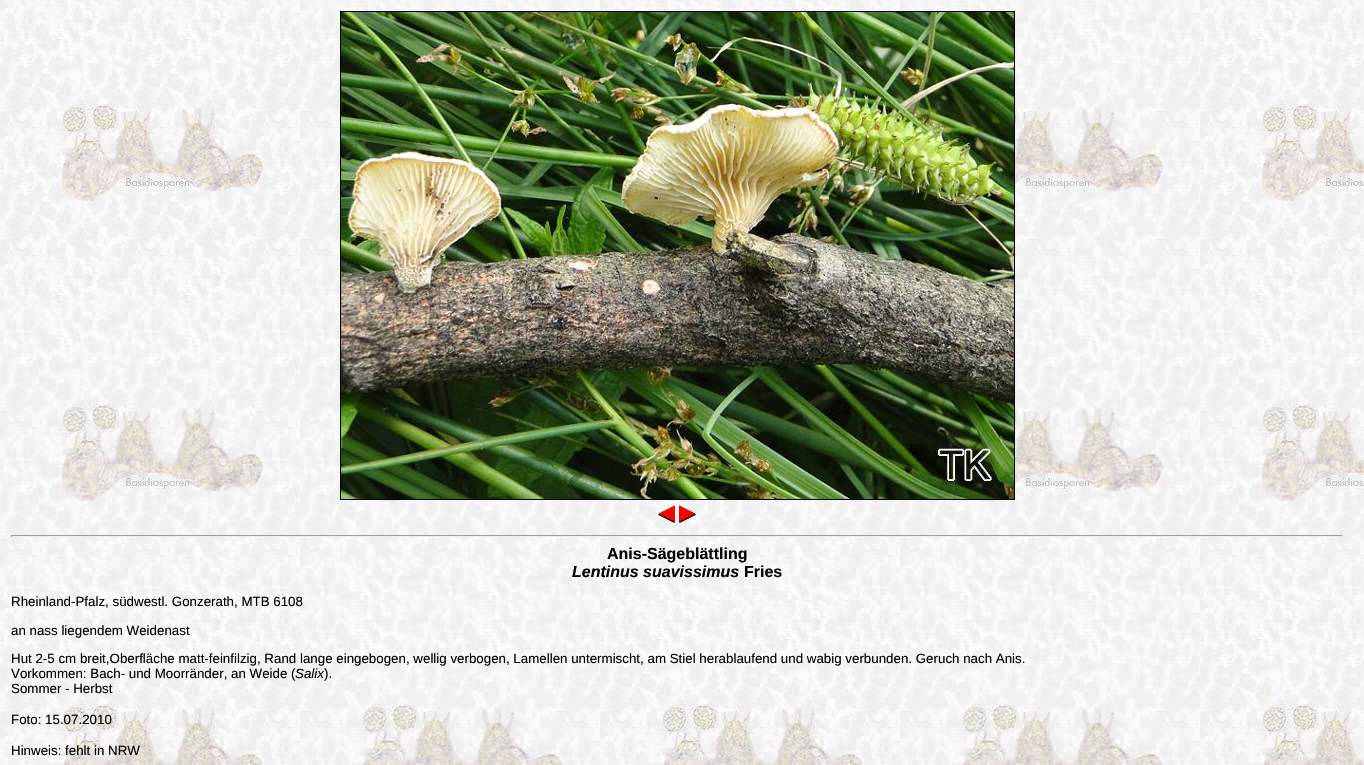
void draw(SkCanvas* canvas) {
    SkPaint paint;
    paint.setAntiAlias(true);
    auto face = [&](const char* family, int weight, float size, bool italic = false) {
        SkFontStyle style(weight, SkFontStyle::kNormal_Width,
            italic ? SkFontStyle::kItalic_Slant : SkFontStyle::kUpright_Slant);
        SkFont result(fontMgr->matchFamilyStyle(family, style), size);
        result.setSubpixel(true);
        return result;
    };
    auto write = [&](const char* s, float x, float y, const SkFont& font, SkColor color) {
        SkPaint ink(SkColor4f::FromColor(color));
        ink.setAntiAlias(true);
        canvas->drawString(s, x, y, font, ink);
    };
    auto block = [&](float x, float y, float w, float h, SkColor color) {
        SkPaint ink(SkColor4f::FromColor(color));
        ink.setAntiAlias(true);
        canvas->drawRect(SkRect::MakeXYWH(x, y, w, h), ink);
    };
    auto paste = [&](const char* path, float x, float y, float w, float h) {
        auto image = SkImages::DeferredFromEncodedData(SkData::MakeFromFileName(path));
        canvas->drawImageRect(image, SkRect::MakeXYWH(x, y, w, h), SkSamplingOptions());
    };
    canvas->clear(SK_ColorWHITE);
    paste("pic1.png", 0, 0, 1364, 765);
    paint.setStyle(SkPaint::kStroke_Style);
    paint.setStrokeWidth(1);
    paint.setColor(SK_ColorBLACK);
    canvas->drawRect(SkRect::MakeXYWH(340.5f, 11.5f, 674, 488), paint);
    paste("pic2.png", 341, 12, 673, 487);
    paste("pic3.png", 658, 505, 17, 18);
    paste("pic4.png", 679, 505, 17, 18);
    block(11, 535, 1332, 1, SkColorSetRGB(159, 159, 159));
    block(1342, 535, 1, 2, SkColorSetRGB(238, 238, 238));
    block(11, 536, 1332, 1, SkColorSetRGB(238, 238, 238));
    block(11, 535, 1, 2, SkColorSetRGB(159, 159, 159));
    auto kFont1 = face("Liberation Sans", 700, 16);
    write("Anis-Sägeblättling", 607, 559, kFont1, SK_ColorBLACK);
    auto kFont2 = face("Liberation Sans", 700, 16, true);
    write("Lentinus suavissimus", 572, 577, kFont2, SK_ColorBLACK);
    write("Fries", 744, 577, kFont1, SK_ColorBLACK);
    auto kFont3 = face("Liberation Sans", 400, 13.33f);
    write("Rheinland-Pfalz, südwestl. Gonzerath, MTB 6108", 11, 606, kFont3, SK_ColorBLACK);
    write("an nass liegendem Weidenast", 11, 635, kFont3, SK_ColorBLACK);
    write("Hut 2-5 cm breit,Oberfläche matt-feinfilzig, Rand lange eingebogen, wellig verbogen, Lamellen untermischt, am Stiel herablaufend und wabig verbunden. Geruch nach Anis.", 11, 663, kFont3, SK_ColorBLACK);
    write("Vorkommen: Bach- und Moorränder, an Weide (", 11, 678, kFont3, SK_ColorBLACK);
    auto kFont4 = face("Liberation Sans", 400, 13.33f, true);
    write("Salix", 295, 678, kFont4, SK_ColorBLACK);
    write(").", 324, 678, kFont3, SK_ColorBLACK);
    write("Sommer - Herbst", 11, 693, kFont3, SK_ColorBLACK);
    write("Foto: 15.07.2010", 11, 724, kFont3, SK_ColorBLACK);
    write("Hinweis: fehlt in NRW", 11, 755, kFont3, SK_ColorBLACK);
}
